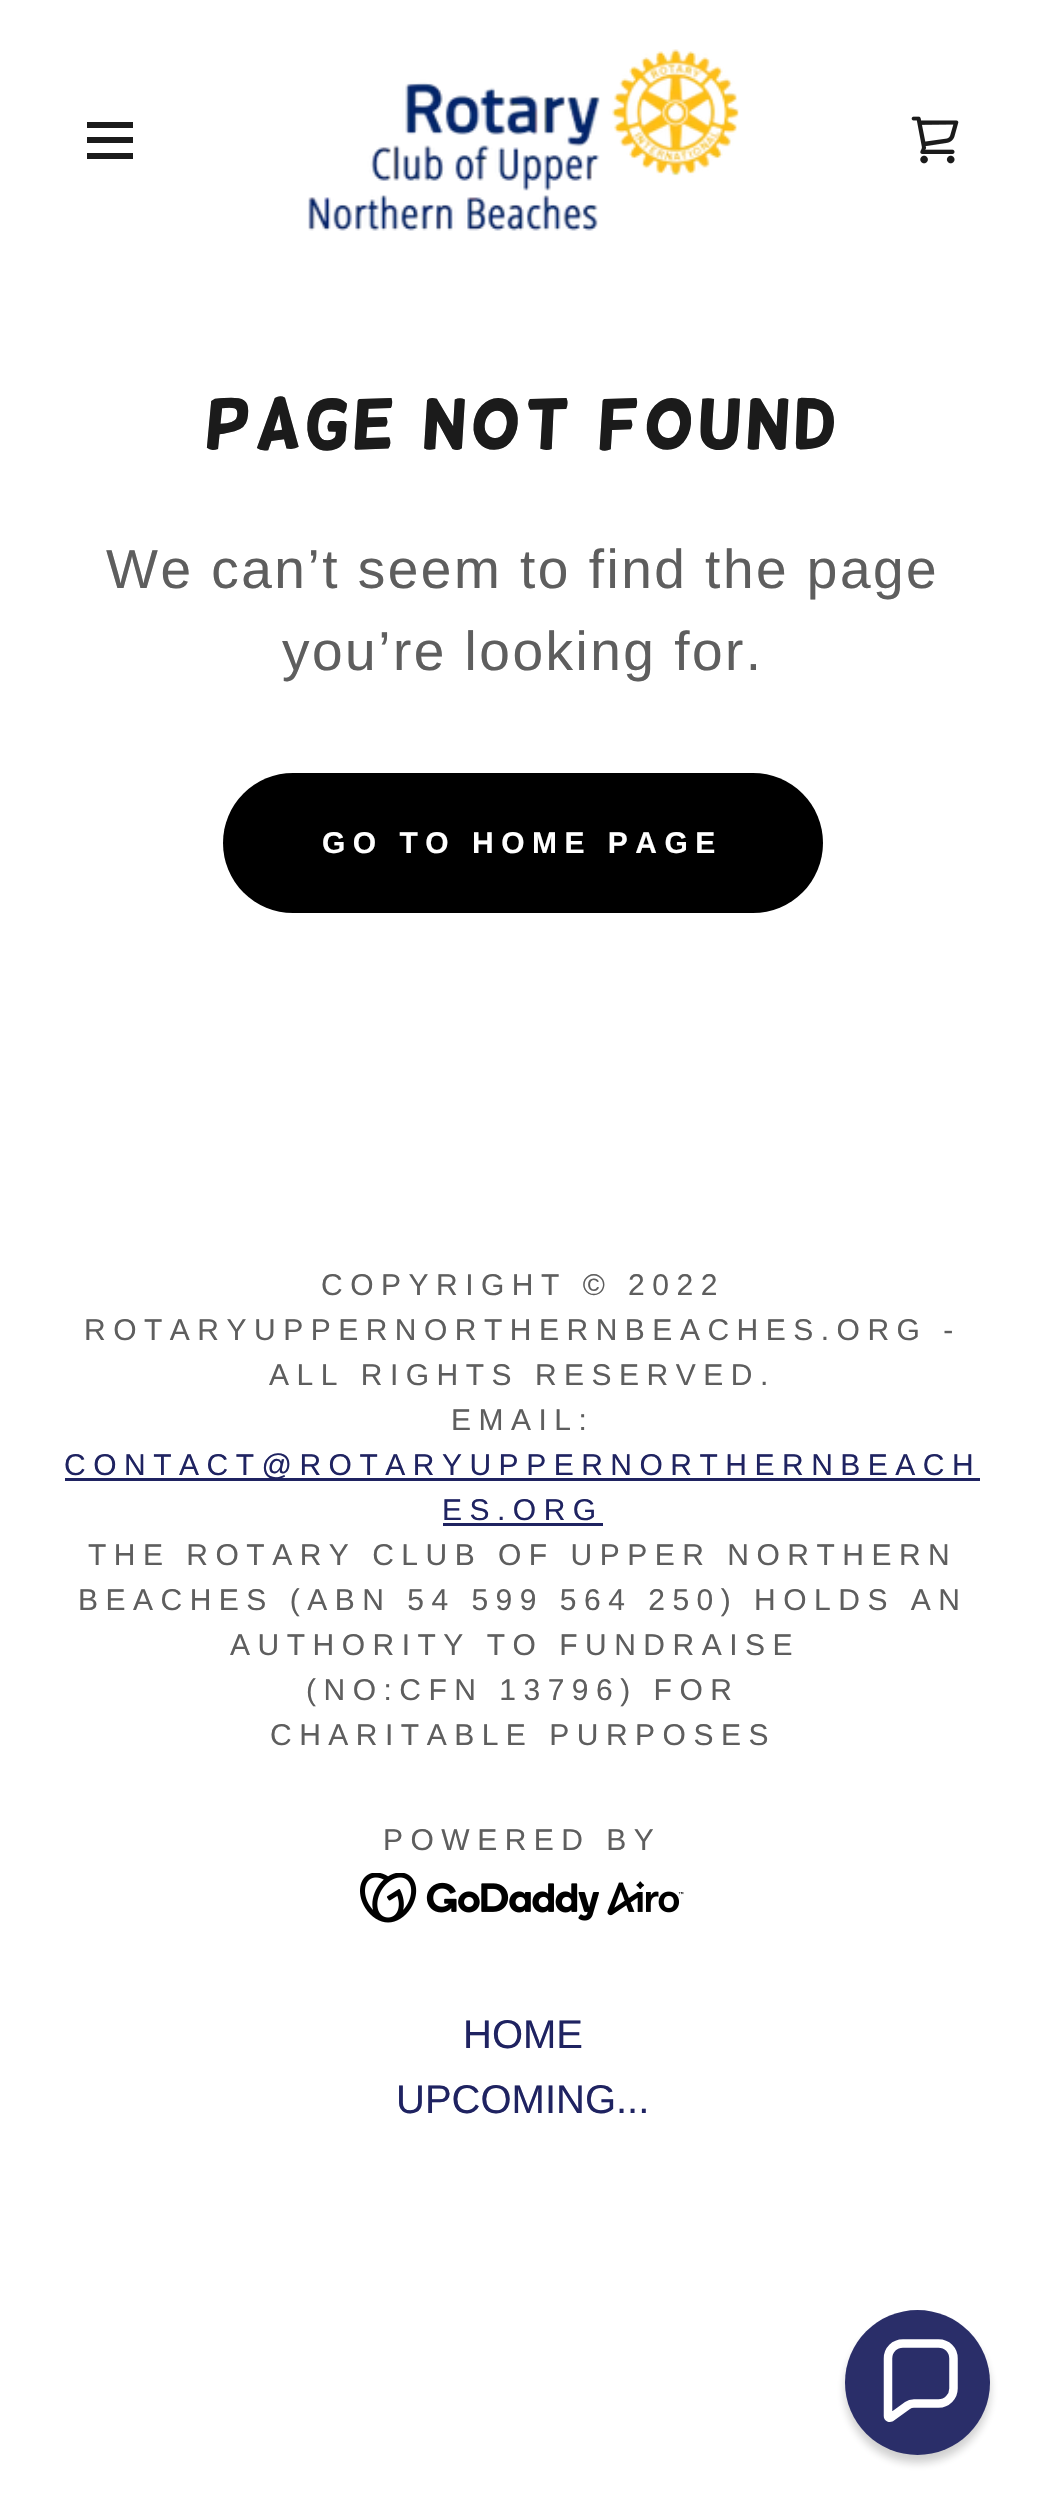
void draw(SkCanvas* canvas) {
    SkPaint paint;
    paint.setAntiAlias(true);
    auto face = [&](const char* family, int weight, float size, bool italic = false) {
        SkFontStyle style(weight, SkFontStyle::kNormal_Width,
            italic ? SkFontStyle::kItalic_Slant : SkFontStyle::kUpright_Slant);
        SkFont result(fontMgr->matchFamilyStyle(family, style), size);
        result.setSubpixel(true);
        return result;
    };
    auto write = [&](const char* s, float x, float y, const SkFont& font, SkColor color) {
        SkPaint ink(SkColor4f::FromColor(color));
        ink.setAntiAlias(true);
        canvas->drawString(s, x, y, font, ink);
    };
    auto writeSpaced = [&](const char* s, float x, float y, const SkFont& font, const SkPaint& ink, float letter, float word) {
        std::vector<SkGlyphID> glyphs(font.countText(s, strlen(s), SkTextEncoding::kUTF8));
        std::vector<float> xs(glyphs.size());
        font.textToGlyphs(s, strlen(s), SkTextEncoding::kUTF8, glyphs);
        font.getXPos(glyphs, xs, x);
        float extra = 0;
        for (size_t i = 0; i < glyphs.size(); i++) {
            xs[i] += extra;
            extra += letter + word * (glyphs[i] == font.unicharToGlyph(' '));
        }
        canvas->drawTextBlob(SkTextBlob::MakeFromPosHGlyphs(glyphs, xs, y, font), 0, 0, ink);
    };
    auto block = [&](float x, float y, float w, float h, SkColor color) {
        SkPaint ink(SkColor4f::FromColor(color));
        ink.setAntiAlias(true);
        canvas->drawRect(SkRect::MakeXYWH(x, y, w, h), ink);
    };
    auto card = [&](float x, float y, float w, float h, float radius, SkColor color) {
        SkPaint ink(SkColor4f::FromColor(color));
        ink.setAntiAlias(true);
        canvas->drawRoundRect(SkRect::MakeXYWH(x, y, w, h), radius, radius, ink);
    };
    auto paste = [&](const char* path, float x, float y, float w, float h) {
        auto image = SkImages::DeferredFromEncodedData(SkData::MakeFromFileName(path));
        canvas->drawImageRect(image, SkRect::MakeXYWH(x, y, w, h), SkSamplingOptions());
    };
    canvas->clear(SK_ColorWHITE);
    block(87, 122, 46, 6, SkColorSetRGB(27, 27, 27));
    block(87, 137, 46, 6, SkColorSetRGB(27, 27, 27));
    block(87, 153, 46, 6, SkColorSetRGB(27, 27, 27));
    paste("pic1.png", 308, 49, 431, 182);
    paste("pic2.png", 911, 116, 48, 48);
    auto kFont1 = face("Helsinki", 400, 70);
    paint.setColor(SkColorSetRGB(27, 27, 27));
    writeSpaced("Page Not Found", 205, 448, kFont1, paint, 3.75f, 0);
    auto kFont2 = face("Liberation Sans", 400, 55);
    paint.setColor(SkColorSetRGB(94, 94, 94));
    writeSpaced("We can’t seem to find the page", 106, 588, kFont2, paint, 2.5f, 0);
    writeSpaced("you’re looking for.", 282, 670, kFont2, paint, 2.5f, 0);
    card(223, 773, 600, 140, 70, SK_ColorBLACK);
    auto kFont3 = face("Liberation Sans", 700, 30);
    paint.setColor(SK_ColorWHITE);
    writeSpaced("GO TO HOME PAGE", 322, 853, kFont3, paint, 7.5f, 0);
    auto kFont4 = face("Liberation Sans", 400, 30);
    paint.setColor(SkColorSetRGB(94, 94, 94));
    writeSpaced("COPYRIGHT © 2022", 321, 1295, kFont4, paint, 7.5f, 0);
    writeSpaced("ROTARYUPPERNORTHERNBEACHES.ORG -", 84, 1340, kFont4, paint, 7.5f, 0);
    writeSpaced("ALL RIGHTS RESERVED.", 269, 1385, kFont4, paint, 7.5f, 0);
    writeSpaced("EMAIL:", 451, 1430, kFont4, paint, 7.5f, 0);
    block(65, 1478, 915, 3, SkColorSetRGB(31, 35, 97));
    paint.setColor(SkColorSetRGB(31, 35, 97));
    writeSpaced("CONTACT@ROTARYUPPERNORTHERNBEACH", 64, 1475, kFont4, paint, 7.5f, 0);
    writeSpaced("ES.ORG", 442, 1520, kFont4, paint, 7.5f, 0);
    block(443, 1523, 160, 3, SkColorSetRGB(31, 35, 97));
    paint.setColor(SkColorSetRGB(94, 94, 94));
    writeSpaced("THE ROTARY CLUB OF UPPER NORTHERN", 88, 1565, kFont4, paint, 7.5f, 0);
    writeSpaced("BEACHES (ABN 54 599 564 250) HOLDS AN", 78, 1610, kFont4, paint, 7.5f, 0);
    writeSpaced("AUTHORITY TO FUNDRAISE", 230, 1655, kFont4, paint, 7.5f, 0);
    writeSpaced("(NO:CFN 13796) FOR", 306, 1700, kFont4, paint, 7.5f, 0);
    writeSpaced("CHARITABLE PURPOSES", 270, 1745, kFont4, paint, 7.5f, 0);
    writeSpaced("POWERED BY", 383, 1850, kFont4, paint, 7.5f, 0);
    paste("pic3.png", 360, 1873, 324, 50);
    auto kFont5 = face("Liberation Sans", 400, 40);
    write("HOME", 463, 2048, kFont5, SkColorSetRGB(31, 35, 97));
    write("UPCOMING...", 396, 2113, kFont5, SkColorSetRGB(31, 35, 97));
    paint.setColor(SkColorSetARGB(51, 13, 13, 13));
    paint.setMaskFilter(SkMaskFilter::MakeBlur(kNormal_SkBlurStyle, 4));
    canvas->drawRoundRect(SkRect::MakeXYWH(845, 2318, 145, 145), 72.5f, 72.5f, paint);
    paint.setMaskFilter(nullptr);
    paint.setColor(SkColorSetRGB(42, 46, 105));
    canvas->drawCircle(917.5f, 2382.5f, 72.5f, paint);
    paint.setStyle(SkPaint::kStroke_Style);
    paint.setStrokeWidth(8.5f);
    paint.setColor(SK_ColorWHITE);
    canvas->drawPath(SkPathBuilder().moveTo(938.5f, 2343.5f).lineTo(903, 2343.5f).cubicTo(894.5f, 2343.5f, 888, 2350, 888, 2358.5f).lineTo(888, 2416).cubicTo(888, 2417.5f, 889.5f, 2418, 891, 2417.5f).lineTo(907.5f, 2405.5f).cubicTo(909.5f, 2404, 911.5f, 2403.5f, 914, 2403.5f).lineTo(938.5f, 2403.5f).cubicTo(947, 2403.5f, 953.5f, 2396.5f, 953.5f, 2388.5f).lineTo(953.5f, 2358.5f).cubicTo(953.5f, 2350, 947, 2343.5f, 938.5f, 2343.5f).close().detach(), paint);
}
